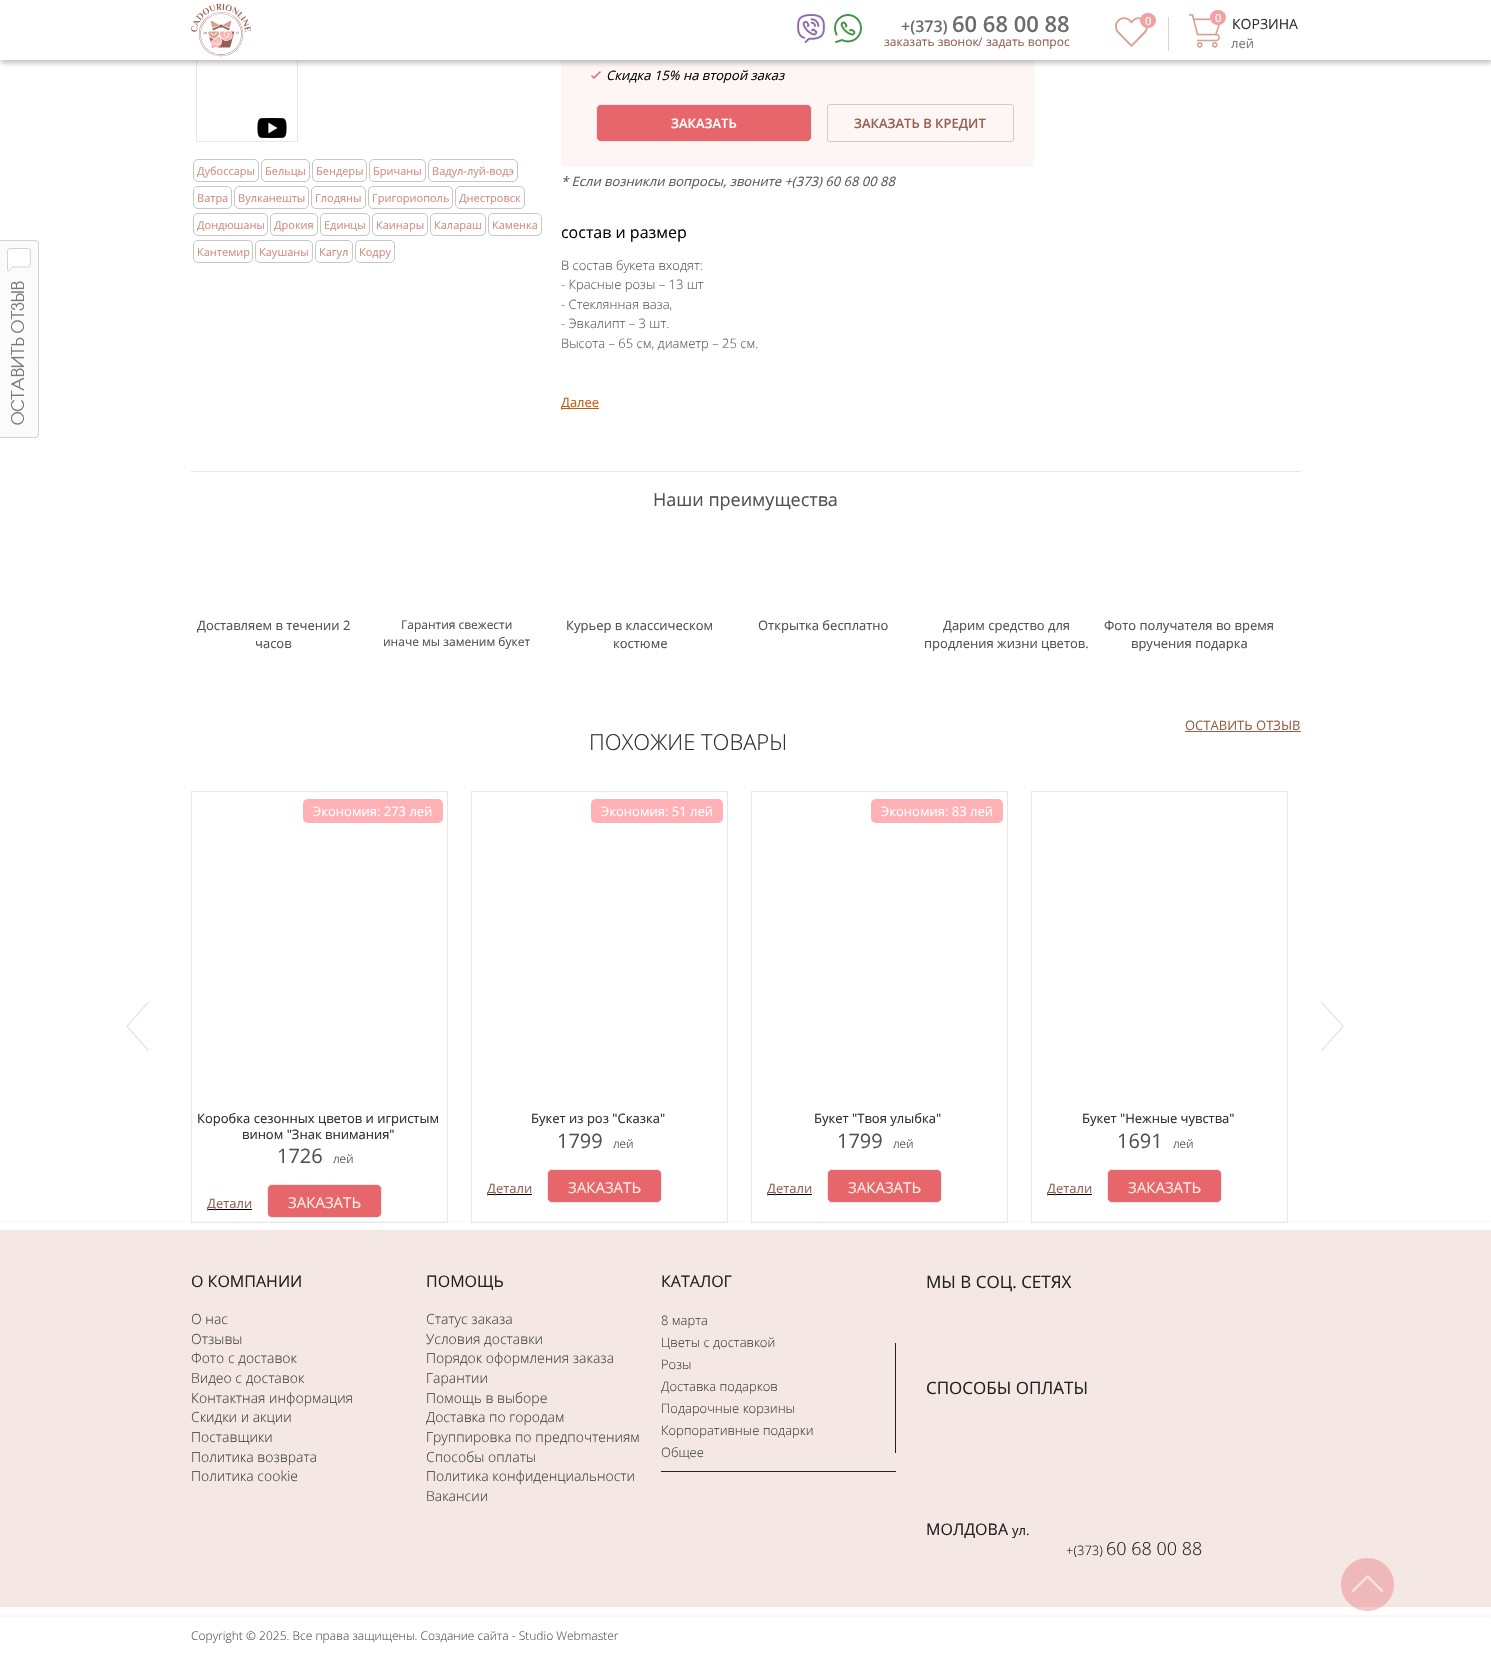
void draw(SkCanvas* canvas) {
    SkPaint paint;
    paint.setAntiAlias(true);
    auto face = [&](const char* family, int weight, float size, bool italic = false) {
        SkFontStyle style(weight, SkFontStyle::kNormal_Width,
            italic ? SkFontStyle::kItalic_Slant : SkFontStyle::kUpright_Slant);
        SkFont result(fontMgr->matchFamilyStyle(family, style), size);
        result.setSubpixel(true);
        return result;
    };
    auto write = [&](const char* s, float x, float y, const SkFont& font, SkColor color) {
        SkPaint ink(SkColor4f::FromColor(color));
        ink.setAntiAlias(true);
        canvas->drawString(s, x, y, font, ink);
    };
    auto block = [&](float x, float y, float w, float h, SkColor color) {
        SkPaint ink(SkColor4f::FromColor(color));
        ink.setAntiAlias(true);
        canvas->drawRect(SkRect::MakeXYWH(x, y, w, h), ink);
    };
    auto card = [&](float x, float y, float w, float h, float radius, SkColor color) {
        SkPaint ink(SkColor4f::FromColor(color));
        ink.setAntiAlias(true);
        canvas->drawRoundRect(SkRect::MakeXYWH(x, y, w, h), radius, radius, ink);
    };
    auto paste = [&](const char* path, float x, float y, float w, float h) {
        auto image = SkImages::DeferredFromEncodedData(SkData::MakeFromFileName(path));
        canvas->drawImageRect(image, SkRect::MakeXYWH(x, y, w, h), SkSamplingOptions());
    };
    canvas->clear(SK_ColorWHITE);
    paint.setStyle(SkPaint::kStroke_Style);
    paint.setStrokeWidth(1);
    paint.setColor(SkColorSetRGB(231, 231, 231));
    canvas->drawRect(SkRect::MakeXYWH(196.5f, 10.5f, 101, 131), paint);
    block(561, 60, 473, 107, SkColorSetRGB(254, 246, 245));
    paste("pic8.png", 591, 71, 10, 8);
    paint.setStyle(SkPaint::kFill_Style);
    paint.setColor(SkColorSetARGB(64, 0, 0, 0));
    paint.setMaskFilter(SkMaskFilter::MakeBlur(kNormal_SkBlurStyle, 2.5f));
    canvas->drawRect(SkRect::MakeXYWH(1, 3, 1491, 60), paint);
    paint.setMaskFilter(nullptr);
    block(0, 0, 1491, 60, SK_ColorWHITE);
    paste("pic1.png", 191, 3, 60, 54);
    paste("pic2.png", 797, 14, 28, 29);
    paste("pic3.png", 834, 14, 28, 29);
    auto kFont1 = face("Open Sans", 600, 16);
    write("+(373)", 901, 32, kFont1, SkColorSetRGB(109, 109, 109));
    auto kFont2 = face("Open Sans", 600, 22);
    write("60 68 00 88", 952, 32, kFont2, SkColorSetRGB(109, 109, 109));
    auto kFont3 = face("Open Sans", 400, 12);
    write("заказать звонок", 884, 46, kFont3, SkColorSetRGB(148, 97, 84));
    write("/", 978, 46, kFont3, SkColorSetRGB(109, 109, 109));
    write("задать вопрос", 986, 46, kFont3, SkColorSetRGB(148, 97, 84));
    block(1168, 17, 1, 34, SkColorSetRGB(214, 214, 214));
    paste("pic4.png", 1115, 17, 33, 30);
    card(1140, 13, 16, 15, 7.5f, SkColorSetRGB(241, 161, 164));
    auto kFont4 = face("Open Sans", 400, 11);
    write("0", 1145, 25, kFont4, SK_ColorWHITE);
    paste("pic5.png", 1189, 14, 32, 34);
    card(1210, 10, 16, 15, 7.5f, SkColorSetRGB(241, 161, 164));
    write("0", 1215, 22, kFont4, SK_ColorWHITE);
    auto kFont5 = face("Open Sans", 400, 14);
    write("КОРЗИНА", 1232, 29, kFont5, SkColorSetRGB(46, 46, 46));
    auto kFont6 = face("Open Sans", 400, 13);
    write("лей", 1231, 48, kFont6, SkColorSetRGB(125, 123, 122));
    paste("pic6.png", 0, 240, 39, 198);
    block(191, 471, 1110, 1, SkColorSetRGB(231, 231, 231));
    paste("pic7.png", 257, 118, 30, 20);
    paint.setStyle(SkPaint::kStroke_Style);
    paint.setColor(SkColorSetRGB(198, 198, 198));
    canvas->drawRoundRect(SkRect::MakeXYWH(193.5f, 159.5f, 65, 22), 4.5f, 4.5f, paint);
    write("Дубоссары", 197, 175, kFont4, SkColorSetRGB(207, 144, 129));
    canvas->drawRoundRect(SkRect::MakeXYWH(261.5f, 159.5f, 48, 22), 4.5f, 4.5f, paint);
    write("Бельцы", 265, 175, kFont4, SkColorSetRGB(207, 144, 129));
    canvas->drawRoundRect(SkRect::MakeXYWH(312.5f, 159.5f, 54, 22), 4.5f, 4.5f, paint);
    write("Бендеры", 316, 175, kFont4, SkColorSetRGB(207, 144, 129));
    canvas->drawRoundRect(SkRect::MakeXYWH(369.5f, 159.5f, 56, 22), 4.5f, 4.5f, paint);
    write("Бричаны", 373, 175, kFont4, SkColorSetRGB(207, 144, 129));
    canvas->drawRoundRect(SkRect::MakeXYWH(428.5f, 159.5f, 89, 22), 4.5f, 4.5f, paint);
    write("Вадул-луй-водэ", 432, 175, kFont4, SkColorSetRGB(207, 144, 129));
    canvas->drawRoundRect(SkRect::MakeXYWH(193.5f, 186.5f, 38, 22), 4.5f, 4.5f, paint);
    write("Ватра", 197, 202, kFont4, SkColorSetRGB(207, 144, 129));
    canvas->drawRoundRect(SkRect::MakeXYWH(234.5f, 186.5f, 74, 22), 4.5f, 4.5f, paint);
    write("Вулканешты", 238, 202, kFont4, SkColorSetRGB(207, 144, 129));
    canvas->drawRoundRect(SkRect::MakeXYWH(311.5f, 186.5f, 54, 22), 4.5f, 4.5f, paint);
    write("Глодяны", 315, 202, kFont4, SkColorSetRGB(207, 144, 129));
    canvas->drawRoundRect(SkRect::MakeXYWH(368.5f, 186.5f, 84, 22), 4.5f, 4.5f, paint);
    write("Григориополь", 372, 202, kFont4, SkColorSetRGB(207, 144, 129));
    canvas->drawRoundRect(SkRect::MakeXYWH(455.5f, 186.5f, 69, 22), 4.5f, 4.5f, paint);
    write("Днестровск", 459, 202, kFont4, SkColorSetRGB(207, 144, 129));
    canvas->drawRoundRect(SkRect::MakeXYWH(193.5f, 213.5f, 74, 22), 4.5f, 4.5f, paint);
    write("Дондюшаны", 197, 229, kFont4, SkColorSetRGB(207, 144, 129));
    canvas->drawRoundRect(SkRect::MakeXYWH(270.5f, 213.5f, 47, 22), 4.5f, 4.5f, paint);
    write("Дрокия", 274, 229, kFont4, SkColorSetRGB(207, 144, 129));
    canvas->drawRoundRect(SkRect::MakeXYWH(320.5f, 213.5f, 49, 22), 4.5f, 4.5f, paint);
    write("Единцы", 324, 229, kFont4, SkColorSetRGB(207, 144, 129));
    canvas->drawRoundRect(SkRect::MakeXYWH(372.5f, 213.5f, 55, 22), 4.5f, 4.5f, paint);
    write("Каинары", 376, 229, kFont4, SkColorSetRGB(207, 144, 129));
    canvas->drawRoundRect(SkRect::MakeXYWH(430.5f, 213.5f, 55, 22), 4.5f, 4.5f, paint);
    write("Калараш", 434, 229, kFont4, SkColorSetRGB(207, 144, 129));
    canvas->drawRoundRect(SkRect::MakeXYWH(488.5f, 213.5f, 53, 22), 4.5f, 4.5f, paint);
    write("Каменка", 492, 229, kFont4, SkColorSetRGB(207, 144, 129));
    canvas->drawRoundRect(SkRect::MakeXYWH(193.5f, 240.5f, 59, 22), 4.5f, 4.5f, paint);
    write("Кантемир", 197, 256, kFont4, SkColorSetRGB(207, 144, 129));
    canvas->drawRoundRect(SkRect::MakeXYWH(255.5f, 240.5f, 57, 22), 4.5f, 4.5f, paint);
    write("Каушаны", 259, 256, kFont4, SkColorSetRGB(207, 144, 129));
    canvas->drawRoundRect(SkRect::MakeXYWH(315.5f, 240.5f, 37, 22), 4.5f, 4.5f, paint);
    write("Кагул", 319, 256, kFont4, SkColorSetRGB(207, 144, 129));
    canvas->drawRoundRect(SkRect::MakeXYWH(355.5f, 240.5f, 39, 22), 4.5f, 4.5f, paint);
    write("Кодру", 359, 256, kFont4, SkColorSetRGB(207, 144, 129));
    auto kFont7 = face("Open Sans", 400, 13, true);
    write("Скидка 15% на второй заказ", 606, 80, kFont7, SkColorSetRGB(5, 5, 5));
    paint.setStyle(SkPaint::kFill_Style);
    paint.setColor(SkColorSetRGB(230, 102, 107));
    canvas->drawRoundRect(SkRect::MakeXYWH(596.5f, 104.5f, 215, 37), 4.5f, 4.5f, paint);
    paint.setStyle(SkPaint::kStroke_Style);
    paint.setColor(SkColorSetRGB(234, 234, 234));
    canvas->drawRoundRect(SkRect::MakeXYWH(596.5f, 104.5f, 215, 37), 4.5f, 4.5f, paint);
    auto kFont8 = face("Open Sans", 600, 13);
    write("ЗАКАЗАТЬ", 671, 128, kFont8, SK_ColorWHITE);
    paint.setColor(SkColorSetRGB(221, 197, 192));
    canvas->drawRoundRect(SkRect::MakeXYWH(827.5f, 104.5f, 186, 37), 2.5f, 2.5f, paint);
    write("ЗАКАЗАТЬ В КРЕДИТ", 854, 128, kFont8, SkColorSetRGB(148, 97, 84));
    write("* Если возникли вопросы, звоните +(373) 60 68 00 88", 561, 186, kFont7, SkColorSetRGB(90, 90, 90));
    auto kFont9 = face("Open Sans", 400, 16);
    write("состав и размер", 561, 238, kFont9, SkColorSetRGB(5, 5, 5));
    auto kFont10 = face("Open Sans", 300, 13);
    write("В состав букета входят:", 561, 270, kFont10, SkColorSetRGB(90, 90, 90));
    write("- Красные розы – 13 шт", 561, 289, kFont10, SkColorSetRGB(90, 90, 90));
    write("- Стеклянная ваза,", 561, 309, kFont10, SkColorSetRGB(90, 90, 90));
    write("- Эвкалипт – 3 шт.", 561, 328, kFont10, SkColorSetRGB(90, 90, 90));
    write("Высота – 65 см, диаметр – 25 см.", 561, 348, kFont10, SkColorSetRGB(90, 90, 90));
    block(561, 408, 38, 1, SkColorSetRGB(195, 95, 18));
    write("Далее", 561, 407, kFont6, SkColorSetRGB(195, 95, 18));
    auto kFont11 = face("Open Sans", 400, 18);
    write("Наши преимущества", 653, 506, kFont11, SkColorSetRGB(81, 81, 81));
    write("Доставляем в течении 2", 197, 630, kFont6, SkColorSetRGB(81, 81, 81));
    write("часов", 255, 648, kFont6, SkColorSetRGB(81, 81, 81));
    write("Гарантия свежести", 401, 629, kFont3, SkColorSetRGB(81, 81, 81));
    write("иначе мы заменим букет", 383, 646, kFont3, SkColorSetRGB(81, 81, 81));
    write("Курьер в классическом", 566, 630, kFont6, SkColorSetRGB(81, 81, 81));
    write("костюме", 613, 648, kFont6, SkColorSetRGB(81, 81, 81));
    write("Открытка бесплатно", 758, 630, kFont6, SkColorSetRGB(81, 81, 81));
    write("Дарим средство для", 943, 630, kFont6, SkColorSetRGB(81, 81, 81));
    write("продления жизни цветов.", 924, 648, kFont6, SkColorSetRGB(81, 81, 81));
    write("Фото получателя во время", 1104, 630, kFont6, SkColorSetRGB(81, 81, 81));
    write("вручения подарка", 1131, 648, kFont6, SkColorSetRGB(81, 81, 81));
    write("ОСТАВИТЬ ОТЗЫВ", 1185, 730, kFont6, SkColorSetRGB(148, 97, 69));
    block(1185, 731, 116, 1, SkColorSetRGB(148, 97, 69));
    auto kFont12 = face("Open Sans", 300, 22);
    write("ПОХОЖИЕ ТОВАРЫ", 589, 750, kFont12, SkColorSetRGB(46, 46, 46));
    block(0, 1221, 1491, 1, SkColorSetRGB(252, 247, 246));
    paint.setColor(SkColorSetRGB(231, 231, 231));
    canvas->drawRect(SkRect::MakeXYWH(191.5f, 791.5f, 256, 431), paint);
    card(303, 799, 140, 24, 5, SkColorSetRGB(255, 178, 181));
    write("Экономия: 273 лей", 313, 816, kFont6, SK_ColorWHITE);
    write("Коробка сезонных цветов и игристым", 197, 1123, kFont6, SkColorSetRGB(46, 46, 46));
    write("вином \"Знак внимания\"", 242, 1139, kFont6, SkColorSetRGB(46, 46, 46));
    auto kFont13 = face("Open Sans", 400, 20);
    write("1726", 277, 1163, kFont13, SkColorSetRGB(81, 81, 81));
    auto kFont14 = face("Open Sans", 300, 12);
    write("лей", 333, 1163, kFont14, SkColorSetRGB(46, 46, 46));
    block(207, 1209, 45, 1, SK_ColorBLACK);
    write("Детали", 207, 1208, kFont6, SkColorSetRGB(148, 97, 84));
    paint.setStyle(SkPaint::kFill_Style);
    paint.setColor(SkColorSetRGB(230, 102, 107));
    canvas->drawRoundRect(SkRect::MakeXYWH(267.5f, 1184.5f, 114, 33), 4.5f, 4.5f, paint);
    paint.setStyle(SkPaint::kStroke_Style);
    paint.setColor(SkColorSetRGB(234, 234, 234));
    canvas->drawRoundRect(SkRect::MakeXYWH(267.5f, 1184.5f, 114, 33), 4.5f, 4.5f, paint);
    auto kFont15 = face("Open Sans", 400, 15);
    write("ЗАКАЗАТЬ", 288, 1208, kFont15, SkColorSetRGB(253, 238, 227));
    paint.setColor(SkColorSetRGB(231, 231, 231));
    canvas->drawRect(SkRect::MakeXYWH(471.5f, 791.5f, 256, 431), paint);
    card(591, 799, 132, 24, 5, SkColorSetRGB(255, 178, 181));
    write("Экономия: 51 лей", 601, 816, kFont6, SK_ColorWHITE);
    write("Букет из роз \"Сказка\"", 531, 1123, kFont6, SkColorSetRGB(46, 46, 46));
    write("1799", 557, 1148, kFont13, SkColorSetRGB(81, 81, 81));
    write("лей", 613, 1148, kFont14, SkColorSetRGB(46, 46, 46));
    block(487, 1194, 45, 1, SK_ColorBLACK);
    write("Детали", 487, 1193, kFont6, SkColorSetRGB(148, 97, 84));
    paint.setStyle(SkPaint::kFill_Style);
    paint.setColor(SkColorSetRGB(230, 102, 107));
    canvas->drawRoundRect(SkRect::MakeXYWH(547.5f, 1169.5f, 114, 33), 4.5f, 4.5f, paint);
    paint.setStyle(SkPaint::kStroke_Style);
    paint.setColor(SkColorSetRGB(234, 234, 234));
    canvas->drawRoundRect(SkRect::MakeXYWH(547.5f, 1169.5f, 114, 33), 4.5f, 4.5f, paint);
    write("ЗАКАЗАТЬ", 568, 1193, kFont15, SkColorSetRGB(253, 238, 227));
    paint.setColor(SkColorSetRGB(231, 231, 231));
    canvas->drawRect(SkRect::MakeXYWH(751.5f, 791.5f, 256, 431), paint);
    card(871, 799, 132, 24, 5, SkColorSetRGB(255, 178, 181));
    write("Экономия: 83 лей", 881, 816, kFont6, SK_ColorWHITE);
    write("Букет \"Твоя улыбка\"", 814, 1123, kFont6, SkColorSetRGB(46, 46, 46));
    write("1799", 837, 1148, kFont13, SkColorSetRGB(81, 81, 81));
    write("лей", 893, 1148, kFont14, SkColorSetRGB(46, 46, 46));
    block(767, 1194, 45, 1, SK_ColorBLACK);
    write("Детали", 767, 1193, kFont6, SkColorSetRGB(148, 97, 84));
    paint.setStyle(SkPaint::kFill_Style);
    paint.setColor(SkColorSetRGB(230, 102, 107));
    canvas->drawRoundRect(SkRect::MakeXYWH(827.5f, 1169.5f, 114, 33), 4.5f, 4.5f, paint);
    paint.setStyle(SkPaint::kStroke_Style);
    paint.setColor(SkColorSetRGB(234, 234, 234));
    canvas->drawRoundRect(SkRect::MakeXYWH(827.5f, 1169.5f, 114, 33), 4.5f, 4.5f, paint);
    write("ЗАКАЗАТЬ", 848, 1193, kFont15, SkColorSetRGB(253, 238, 227));
    paint.setColor(SkColorSetRGB(231, 231, 231));
    canvas->drawRect(SkRect::MakeXYWH(1031.5f, 791.5f, 256, 431), paint);
    write("Букет \"Нежные чувства\"", 1082, 1123, kFont6, SkColorSetRGB(46, 46, 46));
    write("1691", 1117, 1148, kFont13, SkColorSetRGB(81, 81, 81));
    write("лей", 1173, 1148, kFont14, SkColorSetRGB(46, 46, 46));
    block(1047, 1194, 45, 1, SK_ColorBLACK);
    write("Детали", 1047, 1193, kFont6, SkColorSetRGB(148, 97, 84));
    paint.setStyle(SkPaint::kFill_Style);
    paint.setColor(SkColorSetRGB(230, 102, 107));
    canvas->drawRoundRect(SkRect::MakeXYWH(1107.5f, 1169.5f, 114, 33), 4.5f, 4.5f, paint);
    paint.setStyle(SkPaint::kStroke_Style);
    paint.setColor(SkColorSetRGB(234, 234, 234));
    canvas->drawRoundRect(SkRect::MakeXYWH(1107.5f, 1169.5f, 114, 33), 4.5f, 4.5f, paint);
    write("ЗАКАЗАТЬ", 1128, 1193, kFont15, SkColorSetRGB(253, 238, 227));
    block(148, 1050, 1, 1, SkColorSetRGB(233, 233, 233));
    block(148, 1049, 1, 1, SkColorSetRGB(245, 245, 245));
    block(148, 1003, 1, 1, SkColorSetRGB(252, 252, 252));
    block(148, 1002, 1, 1, SkColorSetRGB(230, 230, 230));
    block(148, 1001, 1, 1, SkColorSetRGB(251, 251, 251));
    block(147, 1050, 1, 1, SkColorSetRGB(247, 247, 247));
    block(147, 1049, 1, 1, SkColorSetRGB(225, 225, 225));
    block(147, 1048, 1, 1, SkColorSetRGB(242, 242, 242));
    block(147, 1004, 1, 1, SkColorSetRGB(250, 250, 250));
    block(147, 1003, 1, 1, SkColorSetRGB(227, 227, 227));
    block(147, 1002, 1, 1, SkColorSetRGB(238, 238, 238));
    block(146, 1049, 1, 1, SkColorSetRGB(249, 249, 249));
    block(146, 1048, 1, 1, SkColorSetRGB(227, 227, 227));
    block(146, 1047, 1, 1, SkColorSetRGB(240, 240, 240));
    block(146, 1005, 1, 1, SkColorSetRGB(248, 248, 248));
    block(146, 1004, 1, 1, SkColorSetRGB(225, 225, 225));
    block(146, 1003, 1, 1, SkColorSetRGB(242, 242, 242));
    block(145, 1048, 1, 1, SkColorSetRGB(251, 251, 251));
    block(145, 1047, 1, 1, SkColorSetRGB(228, 228, 228));
    block(145, 1046, 1, 1, SkColorSetRGB(236, 236, 236));
    block(145, 1006, 1, 1, SkColorSetRGB(245, 245, 245));
    block(145, 1005, 1, 1, SkColorSetRGB(224, 224, 224));
    block(145, 1004, 1, 1, SkColorSetRGB(243, 243, 243));
    block(144, 1046, 1, 1, SkColorSetRGB(230, 230, 230));
    block(143, 1045, 2, 1, SkColorSetRGB(232, 232, 232));
    block(144, 1007, 1, 1, SkColorSetRGB(242, 242, 242));
    block(144, 1006, 1, 1, SkColorSetRGB(225, 225, 225));
    block(144, 1005, 1, 1, SkColorSetRGB(247, 247, 247));
    block(143, 1044, 1, 1, SkColorSetRGB(229, 229, 229));
    block(143, 1043, 1, 1, SkColorSetRGB(252, 252, 252));
    block(143, 1008, 1, 1, SkColorSetRGB(240, 240, 240));
    block(143, 1007, 1, 1, SkColorSetRGB(226, 226, 226));
    block(143, 1006, 1, 1, SkColorSetRGB(249, 249, 249));
    block(142, 1044, 1, 1, SkColorSetRGB(236, 236, 236));
    block(142, 1043, 1, 1, SkColorSetRGB(228, 228, 228));
    block(142, 1042, 1, 1, SkColorSetRGB(251, 251, 251));
    block(142, 1009, 1, 1, SkColorSetRGB(236, 236, 236));
    block(142, 1008, 1, 1, SkColorSetRGB(228, 228, 228));
    block(142, 1007, 1, 1, SkColorSetRGB(251, 251, 251));
    block(141, 1043, 1, 1, SkColorSetRGB(240, 240, 240));
    block(141, 1042, 1, 1, SkColorSetRGB(226, 226, 226));
    block(141, 1041, 1, 1, SkColorSetRGB(249, 249, 249));
    block(140, 1010, 2, 1, SkColorSetRGB(232, 232, 232));
    block(141, 1009, 1, 1, SkColorSetRGB(229, 229, 229));
    block(140, 1042, 1, 1, SkColorSetRGB(243, 243, 243));
    block(140, 1041, 1, 1, SkColorSetRGB(225, 225, 225));
    block(140, 1040, 1, 1, SkColorSetRGB(247, 247, 247));
    block(140, 1011, 1, 1, SkColorSetRGB(229, 229, 229));
    block(139, 1041, 1, 1, SkColorSetRGB(245, 245, 245));
    block(139, 1040, 1, 1, SkColorSetRGB(224, 224, 224));
    block(139, 1039, 1, 1, SkColorSetRGB(243, 243, 243));
    block(139, 1013, 1, 1, SkColorSetRGB(251, 251, 251));
    block(139, 1012, 1, 1, SkColorSetRGB(228, 228, 228));
    block(139, 1011, 1, 1, SkColorSetRGB(236, 236, 236));
    block(138, 1040, 1, 1, SkColorSetRGB(248, 248, 248));
    block(138, 1039, 1, 1, SkColorSetRGB(225, 225, 225));
    block(138, 1038, 1, 1, SkColorSetRGB(241, 241, 241));
    block(138, 1014, 1, 1, SkColorSetRGB(249, 249, 249));
    block(138, 1013, 1, 1, SkColorSetRGB(226, 226, 226));
    block(138, 1012, 1, 1, SkColorSetRGB(240, 240, 240));
    block(137, 1039, 1, 1, SkColorSetRGB(250, 250, 250));
    block(137, 1038, 1, 1, SkColorSetRGB(227, 227, 227));
    block(137, 1037, 1, 1, SkColorSetRGB(238, 238, 238));
    block(137, 1015, 1, 1, SkColorSetRGB(247, 247, 247));
    block(137, 1014, 1, 1, SkColorSetRGB(225, 225, 225));
    block(137, 1013, 1, 1, SkColorSetRGB(242, 242, 242));
    block(136, 1038, 1, 1, SkColorSetRGB(252, 252, 252));
    block(136, 1037, 1, 1, SkColorSetRGB(228, 228, 228));
    block(136, 1036, 1, 1, SkColorSetRGB(234, 234, 234));
    block(136, 1016, 1, 1, SkColorSetRGB(244, 244, 244));
    block(136, 1015, 1, 1, SkColorSetRGB(224, 224, 224));
    block(136, 1014, 1, 1, SkColorSetRGB(245, 245, 245));
    block(135, 1035, 1, 2, SkColorSetRGB(231, 231, 231));
    block(135, 1017, 1, 1, SkColorSetRGB(242, 242, 242));
    block(135, 1016, 1, 1, SkColorSetRGB(225, 225, 225));
    block(135, 1015, 1, 1, SkColorSetRGB(248, 248, 248));
    block(134, 1035, 1, 1, SkColorSetRGB(234, 234, 234));
    block(134, 1034, 1, 1, SkColorSetRGB(229, 229, 229));
    block(134, 1033, 1, 1, SkColorSetRGB(252, 252, 252));
    block(134, 1018, 1, 1, SkColorSetRGB(238, 238, 238));
    block(134, 1017, 1, 1, SkColorSetRGB(227, 227, 227));
    block(134, 1016, 1, 1, SkColorSetRGB(250, 250, 250));
    block(133, 1034, 1, 1, SkColorSetRGB(238, 238, 238));
    block(133, 1033, 1, 1, SkColorSetRGB(227, 227, 227));
    block(133, 1032, 1, 1, SkColorSetRGB(250, 250, 250));
    block(133, 1019, 1, 1, SkColorSetRGB(234, 234, 234));
    block(133, 1018, 1, 1, SkColorSetRGB(228, 228, 228));
    block(133, 1017, 1, 1, SkColorSetRGB(252, 252, 252));
    block(132, 1033, 1, 1, SkColorSetRGB(241, 241, 241));
    block(132, 1032, 1, 1, SkColorSetRGB(225, 225, 225));
    block(132, 1031, 1, 1, SkColorSetRGB(248, 248, 248));
    block(132, 1019, 1, 2, SkColorSetRGB(231, 231, 231));
    block(131, 1032, 1, 1, SkColorSetRGB(243, 243, 243));
    block(131, 1031, 1, 1, SkColorSetRGB(224, 224, 224));
    block(131, 1030, 1, 1, SkColorSetRGB(245, 245, 245));
    block(131, 1022, 1, 1, SkColorSetRGB(252, 252, 252));
    block(131, 1021, 1, 1, SkColorSetRGB(229, 229, 229));
    block(131, 1020, 1, 1, SkColorSetRGB(234, 234, 234));
    block(130, 1031, 1, 1, SkColorSetRGB(247, 247, 247));
    block(130, 1030, 1, 1, SkColorSetRGB(225, 225, 225));
    block(130, 1029, 1, 1, SkColorSetRGB(243, 243, 243));
    block(130, 1023, 1, 1, SkColorSetRGB(250, 250, 250));
    block(130, 1022, 1, 1, SkColorSetRGB(227, 227, 227));
    block(130, 1021, 1, 1, SkColorSetRGB(238, 238, 238));
    block(129, 1030, 1, 1, SkColorSetRGB(249, 249, 249));
    block(129, 1029, 1, 1, SkColorSetRGB(226, 226, 226));
    block(129, 1028, 1, 1, SkColorSetRGB(240, 240, 240));
    block(129, 1024, 1, 1, SkColorSetRGB(248, 248, 248));
    block(129, 1023, 1, 1, SkColorSetRGB(225, 225, 225));
    block(129, 1022, 1, 1, SkColorSetRGB(240, 240, 240));
    block(128, 1029, 1, 1, SkColorSetRGB(251, 251, 251));
    block(128, 1028, 1, 1, SkColorSetRGB(227, 227, 227));
    block(128, 1027, 1, 1, SkColorSetRGB(236, 236, 236));
    block(128, 1025, 1, 1, SkColorSetRGB(245, 245, 245));
    block(128, 1024, 1, 1, SkColorSetRGB(224, 224, 224));
    block(128, 1023, 1, 1, SkColorSetRGB(243, 243, 243));
    block(127, 1028, 1, 1, SkColorSetRGB(252, 252, 252));
    block(127, 1027, 1, 1, SkColorSetRGB(229, 229, 229));
    block(127, 1026, 1, 1, SkColorSetRGB(230, 230, 230));
    block(127, 1025, 1, 1, SkColorSetRGB(225, 225, 225));
    block(127, 1024, 1, 1, SkColorSetRGB(247, 247, 247));
    block(126, 1026, 1, 1, SkColorSetRGB(235, 235, 235));
    block(126, 1025, 1, 1, SkColorSetRGB(249, 249, 249));
    block(1343, 1026, 1, 1, SkColorSetRGB(235, 235, 235));
    block(1343, 1025, 1, 1, SkColorSetRGB(249, 249, 249));
    block(1342, 1028, 1, 1, SkColorSetRGB(252, 252, 252));
    block(1342, 1027, 1, 1, SkColorSetRGB(229, 229, 229));
    block(1342, 1026, 1, 1, SkColorSetRGB(230, 230, 230));
    block(1342, 1025, 1, 1, SkColorSetRGB(225, 225, 225));
    block(1342, 1024, 1, 1, SkColorSetRGB(247, 247, 247));
    block(1341, 1029, 1, 1, SkColorSetRGB(251, 251, 251));
    block(1341, 1028, 1, 1, SkColorSetRGB(228, 228, 228));
    block(1341, 1027, 1, 1, SkColorSetRGB(236, 236, 236));
    block(1341, 1025, 1, 1, SkColorSetRGB(245, 245, 245));
    block(1341, 1024, 1, 1, SkColorSetRGB(224, 224, 224));
    block(1341, 1023, 1, 1, SkColorSetRGB(243, 243, 243));
    block(1340, 1030, 1, 1, SkColorSetRGB(249, 249, 249));
    block(1340, 1029, 1, 1, SkColorSetRGB(226, 226, 226));
    block(1340, 1028, 1, 1, SkColorSetRGB(240, 240, 240));
    block(1340, 1024, 1, 1, SkColorSetRGB(248, 248, 248));
    block(1340, 1023, 1, 1, SkColorSetRGB(225, 225, 225));
    block(1340, 1022, 1, 1, SkColorSetRGB(241, 241, 241));
    block(1339, 1031, 1, 1, SkColorSetRGB(247, 247, 247));
    block(1339, 1030, 1, 1, SkColorSetRGB(225, 225, 225));
    block(1339, 1029, 1, 1, SkColorSetRGB(243, 243, 243));
    block(1339, 1023, 1, 1, SkColorSetRGB(250, 250, 250));
    block(1339, 1022, 1, 1, SkColorSetRGB(227, 227, 227));
    block(1339, 1021, 1, 1, SkColorSetRGB(238, 238, 238));
    block(1338, 1032, 1, 1, SkColorSetRGB(243, 243, 243));
    block(1338, 1031, 1, 1, SkColorSetRGB(224, 224, 224));
    block(1338, 1030, 1, 1, SkColorSetRGB(245, 245, 245));
    block(1338, 1022, 1, 1, SkColorSetRGB(252, 252, 252));
    block(1338, 1021, 1, 1, SkColorSetRGB(229, 229, 229));
    block(1338, 1020, 1, 1, SkColorSetRGB(234, 234, 234));
    block(1337, 1033, 1, 1, SkColorSetRGB(241, 241, 241));
    block(1337, 1032, 1, 1, SkColorSetRGB(225, 225, 225));
    block(1337, 1031, 1, 1, SkColorSetRGB(248, 248, 248));
    block(1337, 1019, 1, 2, SkColorSetRGB(231, 231, 231));
    block(1336, 1034, 1, 1, SkColorSetRGB(238, 238, 238));
    block(1336, 1033, 1, 1, SkColorSetRGB(227, 227, 227));
    block(1336, 1032, 1, 1, SkColorSetRGB(250, 250, 250));
    block(1336, 1019, 1, 1, SkColorSetRGB(234, 234, 234));
    block(1336, 1018, 1, 1, SkColorSetRGB(228, 228, 228));
    block(1336, 1017, 1, 1, SkColorSetRGB(252, 252, 252));
    block(1335, 1035, 1, 1, SkColorSetRGB(234, 234, 234));
    block(1335, 1034, 1, 1, SkColorSetRGB(229, 229, 229));
    block(1335, 1033, 1, 1, SkColorSetRGB(252, 252, 252));
    block(1335, 1018, 1, 1, SkColorSetRGB(238, 238, 238));
    block(1335, 1017, 1, 1, SkColorSetRGB(227, 227, 227));
    block(1335, 1016, 1, 1, SkColorSetRGB(250, 250, 250));
    block(1334, 1035, 1, 2, SkColorSetRGB(231, 231, 231));
    block(1334, 1017, 1, 1, SkColorSetRGB(242, 242, 242));
    block(1334, 1016, 1, 1, SkColorSetRGB(225, 225, 225));
    block(1334, 1015, 1, 1, SkColorSetRGB(248, 248, 248));
    block(1333, 1038, 1, 1, SkColorSetRGB(252, 252, 252));
    block(1333, 1037, 1, 1, SkColorSetRGB(229, 229, 229));
    block(1333, 1036, 1, 1, SkColorSetRGB(234, 234, 234));
    block(1333, 1016, 1, 1, SkColorSetRGB(244, 244, 244));
    block(1333, 1015, 1, 1, SkColorSetRGB(224, 224, 224));
    block(1333, 1014, 1, 1, SkColorSetRGB(245, 245, 245));
    block(1332, 1039, 1, 1, SkColorSetRGB(250, 250, 250));
    block(1332, 1038, 1, 1, SkColorSetRGB(227, 227, 227));
    block(1332, 1037, 1, 1, SkColorSetRGB(238, 238, 238));
    block(1332, 1015, 1, 1, SkColorSetRGB(247, 247, 247));
    block(1332, 1014, 1, 1, SkColorSetRGB(225, 225, 225));
    block(1332, 1013, 1, 1, SkColorSetRGB(242, 242, 242));
    block(1331, 1040, 1, 1, SkColorSetRGB(248, 248, 248));
    block(1331, 1039, 1, 1, SkColorSetRGB(225, 225, 225));
    block(1331, 1038, 1, 1, SkColorSetRGB(241, 241, 241));
    block(1331, 1014, 1, 1, SkColorSetRGB(249, 249, 249));
    block(1331, 1013, 1, 1, SkColorSetRGB(226, 226, 226));
    block(1331, 1012, 1, 1, SkColorSetRGB(240, 240, 240));
    block(1330, 1041, 1, 1, SkColorSetRGB(245, 245, 245));
    block(1330, 1040, 1, 1, SkColorSetRGB(224, 224, 224));
    block(1330, 1039, 1, 1, SkColorSetRGB(243, 243, 243));
    block(1330, 1013, 1, 1, SkColorSetRGB(251, 251, 251));
    block(1330, 1012, 1, 1, SkColorSetRGB(228, 228, 228));
    block(1330, 1011, 1, 1, SkColorSetRGB(236, 236, 236));
    block(1329, 1042, 1, 1, SkColorSetRGB(243, 243, 243));
    block(1329, 1041, 1, 1, SkColorSetRGB(225, 225, 225));
    block(1329, 1040, 1, 1, SkColorSetRGB(247, 247, 247));
    block(1329, 1011, 1, 1, SkColorSetRGB(229, 229, 229));
    block(1328, 1010, 2, 1, SkColorSetRGB(232, 232, 232));
    block(1328, 1043, 1, 1, SkColorSetRGB(240, 240, 240));
    block(1328, 1042, 1, 1, SkColorSetRGB(226, 226, 226));
    block(1328, 1041, 1, 1, SkColorSetRGB(249, 249, 249));
    block(1328, 1009, 1, 1, SkColorSetRGB(229, 229, 229));
    block(1327, 1044, 1, 1, SkColorSetRGB(236, 236, 236));
    block(1327, 1043, 1, 1, SkColorSetRGB(228, 228, 228));
    block(1327, 1042, 1, 1, SkColorSetRGB(251, 251, 251));
    block(1327, 1009, 1, 1, SkColorSetRGB(236, 236, 236));
    block(1327, 1008, 1, 1, SkColorSetRGB(228, 228, 228));
    block(1327, 1007, 1, 1, SkColorSetRGB(251, 251, 251));
    block(1325, 1045, 2, 1, SkColorSetRGB(232, 232, 232));
    block(1326, 1044, 1, 1, SkColorSetRGB(229, 229, 229));
    block(1326, 1043, 1, 1, SkColorSetRGB(252, 252, 252));
    block(1326, 1008, 1, 1, SkColorSetRGB(240, 240, 240));
    block(1326, 1007, 1, 1, SkColorSetRGB(226, 226, 226));
    block(1326, 1006, 1, 1, SkColorSetRGB(249, 249, 249));
    block(1325, 1046, 1, 1, SkColorSetRGB(230, 230, 230));
    block(1325, 1007, 1, 1, SkColorSetRGB(242, 242, 242));
    block(1325, 1006, 1, 1, SkColorSetRGB(225, 225, 225));
    block(1325, 1005, 1, 1, SkColorSetRGB(247, 247, 247));
    block(1324, 1048, 1, 1, SkColorSetRGB(251, 251, 251));
    block(1324, 1047, 1, 1, SkColorSetRGB(228, 228, 228));
    block(1324, 1046, 1, 1, SkColorSetRGB(236, 236, 236));
    block(1324, 1006, 1, 1, SkColorSetRGB(245, 245, 245));
    block(1324, 1005, 1, 1, SkColorSetRGB(224, 224, 224));
    block(1324, 1004, 1, 1, SkColorSetRGB(244, 244, 244));
    block(1323, 1049, 1, 1, SkColorSetRGB(249, 249, 249));
    block(1323, 1048, 1, 1, SkColorSetRGB(226, 226, 226));
    block(1323, 1047, 1, 1, SkColorSetRGB(240, 240, 240));
    block(1323, 1005, 1, 1, SkColorSetRGB(248, 248, 248));
    block(1323, 1004, 1, 1, SkColorSetRGB(225, 225, 225));
    block(1323, 1003, 1, 1, SkColorSetRGB(242, 242, 242));
    block(1322, 1050, 1, 1, SkColorSetRGB(247, 247, 247));
    block(1322, 1049, 1, 1, SkColorSetRGB(225, 225, 225));
    block(1322, 1048, 1, 1, SkColorSetRGB(242, 242, 242));
    block(1322, 1004, 1, 1, SkColorSetRGB(250, 250, 250));
    block(1322, 1003, 1, 1, SkColorSetRGB(227, 227, 227));
    block(1322, 1002, 1, 1, SkColorSetRGB(238, 238, 238));
    block(1321, 1050, 1, 1, SkColorSetRGB(233, 233, 233));
    block(1321, 1049, 1, 1, SkColorSetRGB(245, 245, 245));
    block(1321, 1003, 1, 1, SkColorSetRGB(252, 252, 252));
    block(1321, 1002, 1, 1, SkColorSetRGB(231, 231, 231));
    block(0, 1615, 1491, 2, SkColorSetRGB(252, 247, 246));
    block(0, 1230, 1491, 377, SkColorSetRGB(245, 231, 228));
    write("О КОМПАНИИ", 191, 1287, kFont9, SkColorSetRGB(33, 33, 33));
    auto kFont16 = face("Open Sans", 300, 14);
    write("О нас", 191, 1324, kFont16, SkColorSetRGB(66, 66, 66));
    write("Отзывы", 191, 1344, kFont16, SkColorSetRGB(66, 66, 66));
    write("Фото c доставок", 191, 1363, kFont16, SkColorSetRGB(66, 66, 66));
    write("Видео с доставок", 191, 1383, kFont16, SkColorSetRGB(66, 66, 66));
    write("Контактная информация", 191, 1403, kFont16, SkColorSetRGB(66, 66, 66));
    write("Скидки и акции", 191, 1422, kFont16, SkColorSetRGB(66, 66, 66));
    write("Поставщики", 191, 1442, kFont16, SkColorSetRGB(66, 66, 66));
    write("Политика возврата", 191, 1462, kFont16, SkColorSetRGB(66, 66, 66));
    write("Политика cookie", 191, 1481, kFont16, SkColorSetRGB(66, 66, 66));
    write("ПОМОЩЬ", 426, 1287, kFont9, SkColorSetRGB(33, 33, 33));
    write("Статус заказа", 426, 1324, kFont16, SkColorSetRGB(66, 66, 66));
    write("Условия доставки", 426, 1344, kFont16, SkColorSetRGB(66, 66, 66));
    write("Порядок оформления заказа", 426, 1363, kFont16, SkColorSetRGB(66, 66, 66));
    write("Гарантии", 426, 1383, kFont16, SkColorSetRGB(66, 66, 66));
    write("Помощь в выборе", 426, 1403, kFont16, SkColorSetRGB(66, 66, 66));
    write("Доставка по городам", 426, 1422, kFont16, SkColorSetRGB(66, 66, 66));
    write("Группировка по предпочтениям", 426, 1442, kFont16, SkColorSetRGB(66, 66, 66));
    write("Способы оплаты", 426, 1462, kFont16, SkColorSetRGB(66, 66, 66));
    write("Политика конфиденциальности", 426, 1481, kFont16, SkColorSetRGB(66, 66, 66));
    write("Вакансии", 426, 1501, kFont16, SkColorSetRGB(66, 66, 66));
    write("КАТАЛОГ", 661, 1287, kFont9, SkColorSetRGB(33, 33, 33));
    write("8 марта", 661, 1325, kFont10, SkColorSetRGB(66, 66, 66));
    write("Цветы с доставкой", 661, 1347, kFont10, SkColorSetRGB(66, 66, 66));
    write("Розы", 661, 1369, kFont10, SkColorSetRGB(66, 66, 66));
    write("Доставка подарков", 661, 1391, kFont10, SkColorSetRGB(66, 66, 66));
    write("Подарочные корзины", 661, 1413, kFont10, SkColorSetRGB(66, 66, 66));
    write("Корпоративные подарки", 661, 1435, kFont10, SkColorSetRGB(66, 66, 66));
    write("Общее", 661, 1457, kFont10, SkColorSetRGB(66, 66, 66));
    block(895, 1343, 1, 110, SkColorSetRGB(33, 33, 33));
    block(661, 1471, 235, 1, SkColorSetRGB(33, 33, 33));
    auto kFont17 = face("Open Sans", 400, 17);
    write("МЫ В СОЦ. СЕТЯХ", 926, 1288, kFont17, SkColorSetRGB(33, 33, 33));
    write("СПОСОБЫ ОПЛАТЫ", 926, 1394, kFont17, SkColorSetRGB(33, 33, 33));
    write("МОЛДОВА", 926, 1535, kFont9, SkColorSetRGB(33, 33, 33));
    write("ул.", 1012, 1535, kFont6, SkColorSetRGB(33, 33, 33));
    write("+(373)", 1066, 1555, kFont10, SkColorSetRGB(33, 33, 33));
    auto kFont18 = face("Open Sans", 300, 18);
    write("60 68 00 88", 1106, 1555, kFont18, SkColorSetRGB(33, 33, 33));
    paste("pic9.png", 1341, 1558, 53, 53);
    write("Copyright © 2025. Все права защищены. Создание сайта - Studio Webmaster", 191, 1640, kFont14, SkColorSetRGB(81, 81, 81));
}
